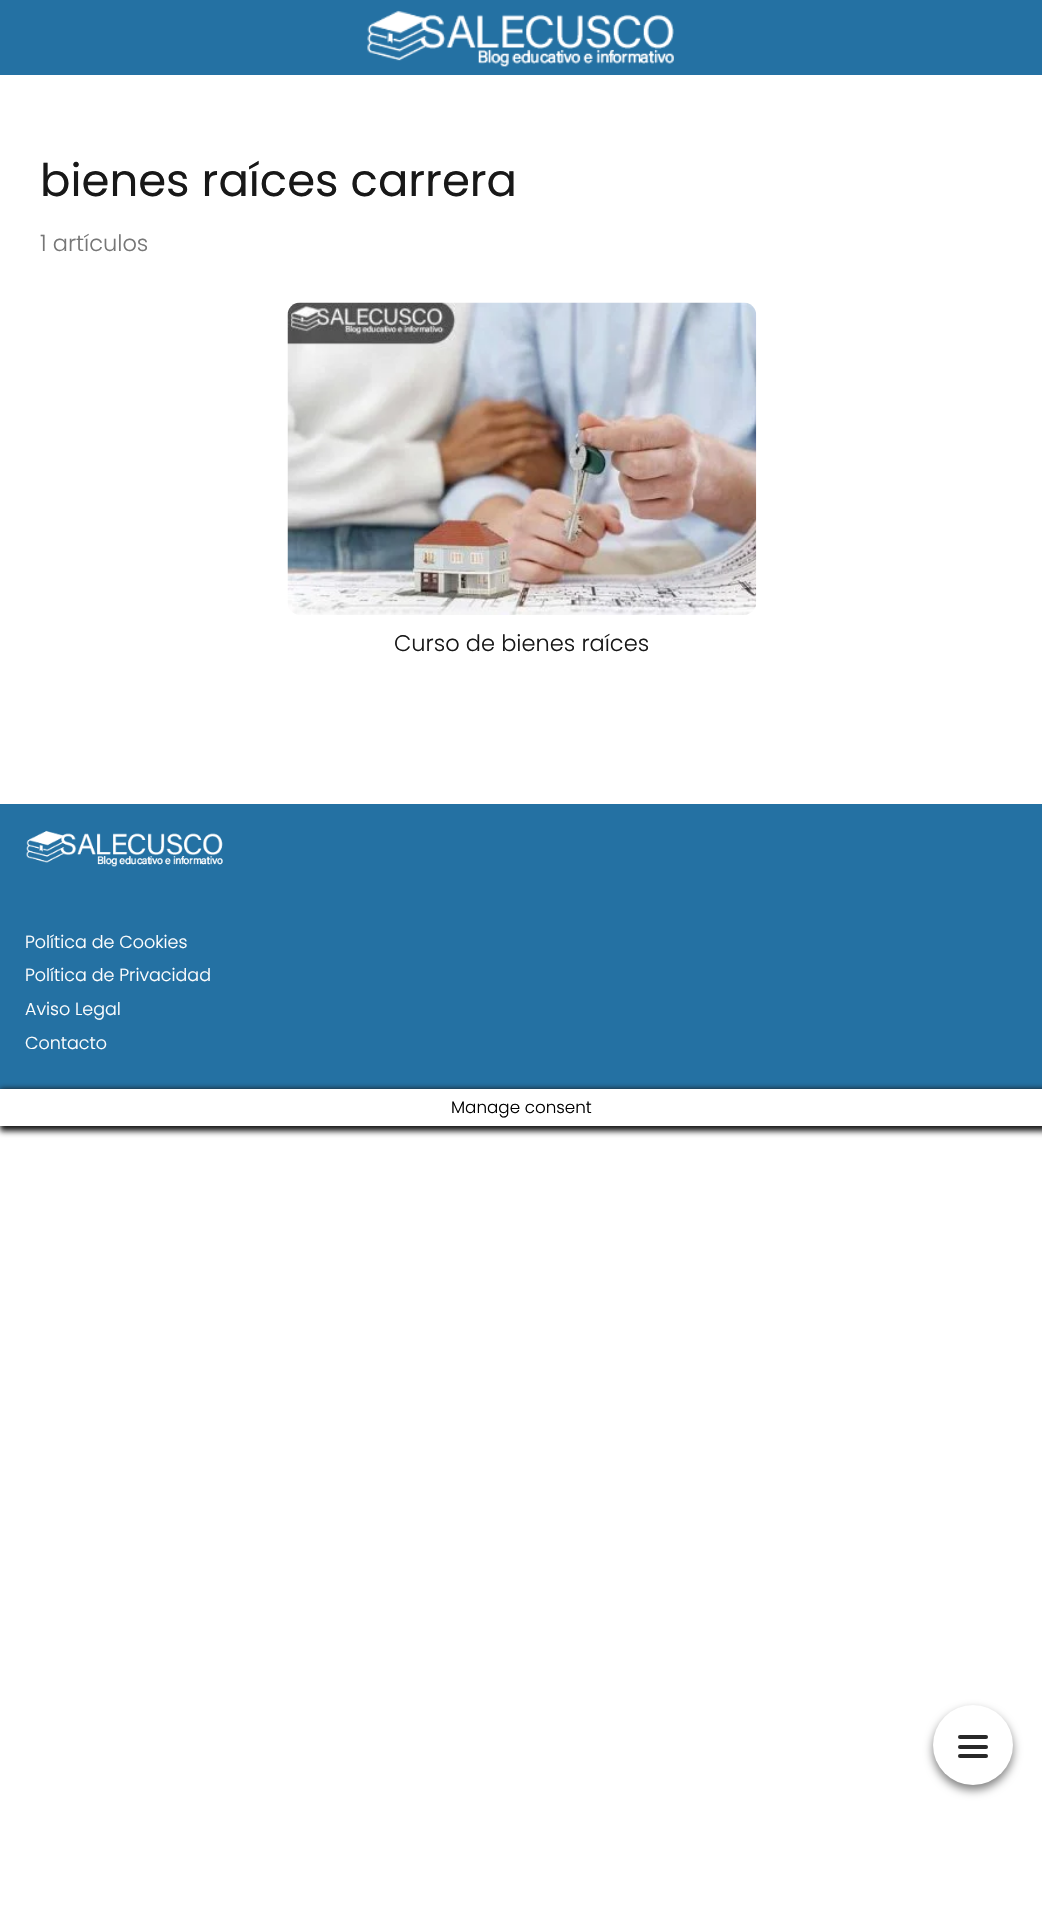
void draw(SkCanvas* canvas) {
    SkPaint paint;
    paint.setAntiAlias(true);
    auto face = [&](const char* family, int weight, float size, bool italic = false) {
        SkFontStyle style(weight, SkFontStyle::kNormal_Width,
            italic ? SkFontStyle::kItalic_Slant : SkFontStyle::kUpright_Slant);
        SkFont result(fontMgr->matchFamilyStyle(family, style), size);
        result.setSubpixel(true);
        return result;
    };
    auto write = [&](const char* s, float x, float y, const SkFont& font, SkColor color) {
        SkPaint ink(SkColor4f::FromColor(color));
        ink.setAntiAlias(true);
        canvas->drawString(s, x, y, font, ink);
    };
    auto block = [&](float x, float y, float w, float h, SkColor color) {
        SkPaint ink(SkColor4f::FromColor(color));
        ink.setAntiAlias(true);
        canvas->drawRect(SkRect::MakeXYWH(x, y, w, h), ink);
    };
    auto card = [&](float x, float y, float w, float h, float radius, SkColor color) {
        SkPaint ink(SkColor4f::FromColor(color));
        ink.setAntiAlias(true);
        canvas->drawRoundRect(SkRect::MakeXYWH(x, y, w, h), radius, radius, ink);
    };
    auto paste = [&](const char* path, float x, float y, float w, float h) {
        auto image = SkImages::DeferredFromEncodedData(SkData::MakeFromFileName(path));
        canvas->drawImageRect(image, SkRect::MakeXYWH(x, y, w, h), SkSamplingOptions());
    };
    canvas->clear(SK_ColorWHITE);
    block(0, 0, 1042, 75, SkColorSetRGB(36, 113, 163));
    paste("pic1.png", 367, 10, 307, 57);
    paint.setColor(SkColorSetARGB(128, 0, 0, 0));
    paint.setMaskFilter(SkMaskFilter::MakeBlur(kNormal_SkBlurStyle, 5));
    canvas->drawRoundRect(SkRect::MakeXYWH(933, 1710, 80, 80), 40, 40, paint);
    paint.setMaskFilter(nullptr);
    paint.setColor(SK_ColorWHITE);
    canvas->drawCircle(973, 1745, 40, paint);
    card(958, 1735, 30, 4, 2, SkColorSetRGB(40, 40, 40));
    card(958, 1745, 30, 4, 2, SkColorSetRGB(40, 40, 40));
    card(958, 1754, 30, 4, 2, SkColorSetRGB(40, 40, 40));
    auto kFont1 = face("Poppins", 400, 45);
    write("bienes raíces carrera", 40, 196, kFont1, SkColorSetRGB(24, 24, 24));
    auto kFont2 = face("Poppins", 300, 22.5f);
    write("1 artículos", 40, 251, kFont2, SkColorSetRGB(118, 118, 118));
    paste("pic2.png", 287, 302, 470, 313);
    write("Curso de bienes raíces", 394, 651, kFont2, SkColorSetRGB(24, 24, 24));
    block(0, 804, 1042, 285, SkColorSetRGB(36, 113, 163));
    paste("pic3.png", 26, 830, 197, 37);
    auto kFont3 = face("Poppins", 300, 17.5f);
    write("Política de Cookies", 25, 948, kFont3, SK_ColorWHITE);
    write("Política de Privacidad", 25, 981, kFont3, SK_ColorWHITE);
    write("Aviso Legal", 25, 1015, kFont3, SK_ColorWHITE);
    write("Contacto", 25, 1049, kFont3, SK_ColorWHITE);
    canvas->save();
    canvas->clipPath(SkPathBuilder(SkPathFillType::kEvenOdd).moveTo(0, 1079).lineTo(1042, 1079).lineTo(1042, 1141).lineTo(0, 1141).close().moveTo(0, 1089).lineTo(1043, 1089).lineTo(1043, 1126).lineTo(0, 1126).close().detach(), true);
    paint.setColor(SkColorSetRGB(22, 22, 22));
    paint.setMaskFilter(SkMaskFilter::MakeBlur(kNormal_SkBlurStyle, 3));
    canvas->drawRect(SkRect::MakeXYWH(0, 1089, 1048, 42), paint);
    paint.setMaskFilter(nullptr);
    canvas->restore();
    auto kFont4 = face("Poppins", 300, 16.75f);
    write("Manage consent", 451, 1113, kFont4, SK_ColorBLACK);
}
